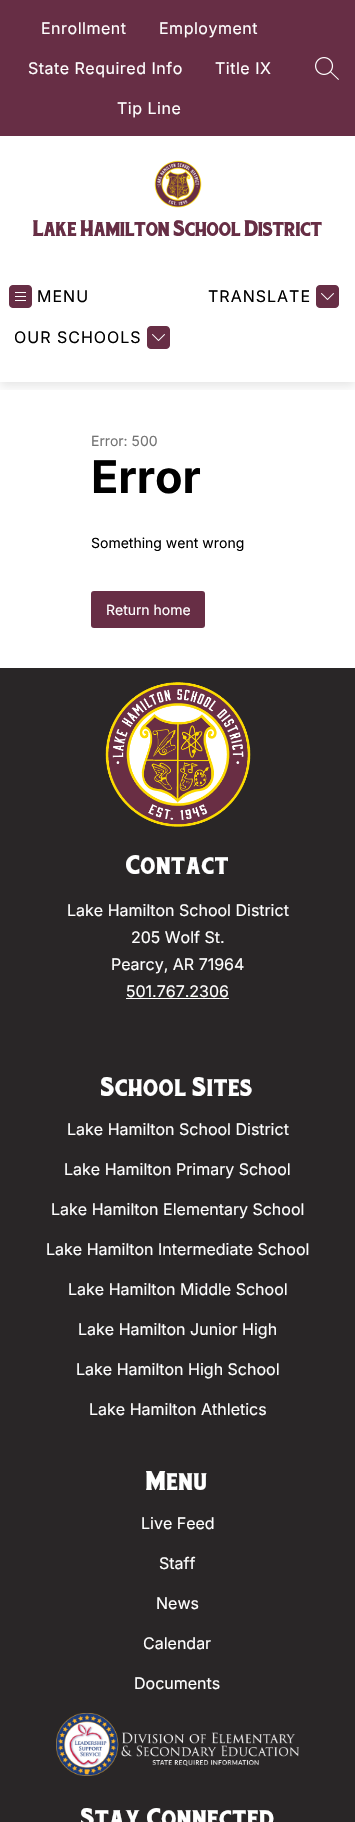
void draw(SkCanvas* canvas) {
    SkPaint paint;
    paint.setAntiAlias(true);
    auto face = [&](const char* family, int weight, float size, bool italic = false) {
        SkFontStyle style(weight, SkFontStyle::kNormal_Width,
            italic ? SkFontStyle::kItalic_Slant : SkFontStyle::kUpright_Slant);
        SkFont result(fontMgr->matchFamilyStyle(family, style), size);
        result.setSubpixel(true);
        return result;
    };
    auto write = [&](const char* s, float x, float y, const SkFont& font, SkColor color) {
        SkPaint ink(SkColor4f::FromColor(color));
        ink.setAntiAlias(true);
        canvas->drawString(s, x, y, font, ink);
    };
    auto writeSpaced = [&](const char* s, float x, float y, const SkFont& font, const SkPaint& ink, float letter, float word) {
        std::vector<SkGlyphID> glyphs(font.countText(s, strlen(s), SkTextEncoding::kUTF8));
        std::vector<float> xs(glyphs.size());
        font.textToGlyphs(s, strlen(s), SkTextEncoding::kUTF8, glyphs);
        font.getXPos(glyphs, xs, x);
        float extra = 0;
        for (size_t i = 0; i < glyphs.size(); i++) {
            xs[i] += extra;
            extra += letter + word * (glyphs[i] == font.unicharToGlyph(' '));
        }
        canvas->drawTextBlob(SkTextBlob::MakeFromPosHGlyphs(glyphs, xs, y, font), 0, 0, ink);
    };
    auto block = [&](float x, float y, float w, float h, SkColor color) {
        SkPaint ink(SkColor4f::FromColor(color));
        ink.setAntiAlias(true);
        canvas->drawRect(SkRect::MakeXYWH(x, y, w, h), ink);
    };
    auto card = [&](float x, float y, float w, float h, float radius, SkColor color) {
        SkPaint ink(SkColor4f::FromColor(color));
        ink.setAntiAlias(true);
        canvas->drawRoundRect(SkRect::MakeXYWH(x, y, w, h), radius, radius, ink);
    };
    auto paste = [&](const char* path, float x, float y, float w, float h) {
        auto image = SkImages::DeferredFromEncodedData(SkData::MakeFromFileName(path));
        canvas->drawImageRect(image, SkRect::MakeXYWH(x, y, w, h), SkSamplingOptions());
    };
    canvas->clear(SK_ColorWHITE);
    canvas->save();
    canvas->clipRect(SkRect::MakeXYWH(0, 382, 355, 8));
    paint.setColor(SkColorSetARGB(26, 0, 0, 0));
    paint.setMaskFilter(SkMaskFilter::MakeBlur(kNormal_SkBlurStyle, 5));
    canvas->drawRect(SkRect::MakeXYWH(0, 4, 355, 382), paint);
    paint.setMaskFilter(nullptr);
    canvas->restore();
    block(0, 0, 355, 136, SkColorSetRGB(103, 46, 69));
    auto kFont1 = face("Inter", 400, 16);
    paint.setColor(SK_ColorWHITE);
    writeSpaced("Enrollment", 41, 34, kFont1, paint, 0.5f, 0);
    writeSpaced("Employment", 159, 34, kFont1, paint, 0.5f, 0);
    writeSpaced("State Required Info", 28, 74, kFont1, paint, 0.5f, 0);
    writeSpaced("Title IX", 215, 74, kFont1, paint, 0.5f, 0);
    writeSpaced("Tip Line", 117, 114, kFont1, paint, 0.5f, 0);
    paste("pic1.png", 315, 57, 24, 23);
    paste("pic2.png", 154, 160, 48, 48);
    auto kFont2 = face("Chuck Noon", 400, 20);
    write("Lake Hamilton School District", 33, 236, kFont2, SkColorSetRGB(103, 46, 69));
    paste("pic3.png", 9, 285, 23, 23);
    paint.setColor(SK_ColorBLACK);
    writeSpaced("MENU", 37, 302, kFont1, paint, 1, 0);
    writeSpaced("OUR SCHOOLS", 14, 343, kFont1, paint, 1, 0);
    paste("pic4.png", 147, 326, 23, 23);
    writeSpaced("TRANSLATE", 208, 302, kFont1, paint, 1, 0);
    paste("pic4.png", 316, 285, 23, 23);
    auto kFont3 = face("Inter", 400, 14);
    write("Error: 500", 91, 446, kFont3, SkColorSetRGB(116, 116, 116));
    auto kFont4 = face("Inter", 700, 45);
    write("Error", 91, 493, kFont4, SK_ColorBLACK);
    write("Something went wrong", 91, 548, kFont3, SK_ColorBLACK);
    card(91, 591, 114, 37, 3, SkColorSetRGB(103, 46, 69));
    write("Return home", 106, 615, kFont3, SK_ColorWHITE);
    block(0, 668, 355, 1154, SkColorSetRGB(41, 38, 39));
    paste("pic5.png", 105, 682, 146, 145);
    auto kFont5 = face("Chuck Noon", 400, 24);
    paint.setColor(SK_ColorWHITE);
    writeSpaced("Contact", 126, 874, kFont5, paint, 1, 0);
    write("Lake Hamilton School District", 67, 916, kFont1, SK_ColorWHITE);
    write("205 Wolf St.", 131, 943, kFont1, SK_ColorWHITE);
    write("Pearcy, AR 71964", 111, 970, kFont1, SK_ColorWHITE);
    write("501.767.2306", 126, 997, kFont1, SK_ColorWHITE);
    block(126, 998, 103, 1, SK_ColorWHITE);
    writeSpaced("School Sites", 101, 1096, kFont5, paint, 1, 0);
    write("Lake Hamilton School District", 67, 1135, kFont1, SK_ColorWHITE);
    write("Lake Hamilton Primary School", 64, 1175, kFont1, SK_ColorWHITE);
    write("Lake Hamilton Elementary School", 51, 1215, kFont1, SK_ColorWHITE);
    write("Lake Hamilton Intermediate School", 46, 1255, kFont1, SK_ColorWHITE);
    write("Lake Hamilton Middle School", 68, 1295, kFont1, SK_ColorWHITE);
    write("Lake Hamilton Junior High", 78, 1335, kFont1, SK_ColorWHITE);
    write("Lake Hamilton High School", 76, 1375, kFont1, SK_ColorWHITE);
    write("Lake Hamilton Athletics", 89, 1415, kFont1, SK_ColorWHITE);
    writeSpaced("Menu", 146, 1490, kFont5, paint, 1, 0);
    write("Live Feed", 141, 1529, kFont1, SK_ColorWHITE);
    write("Staff", 159, 1569, kFont1, SK_ColorWHITE);
    write("News", 156, 1609, kFont1, SK_ColorWHITE);
    write("Calendar", 143, 1649, kFont1, SK_ColorWHITE);
    write("Documents", 134, 1689, kFont1, SK_ColorWHITE);
    paste("pic6.png", 56, 1713, 243, 63);
    writeSpaced("Stay Connected", 81, 1827, kFont5, paint, 1, 0);
}
